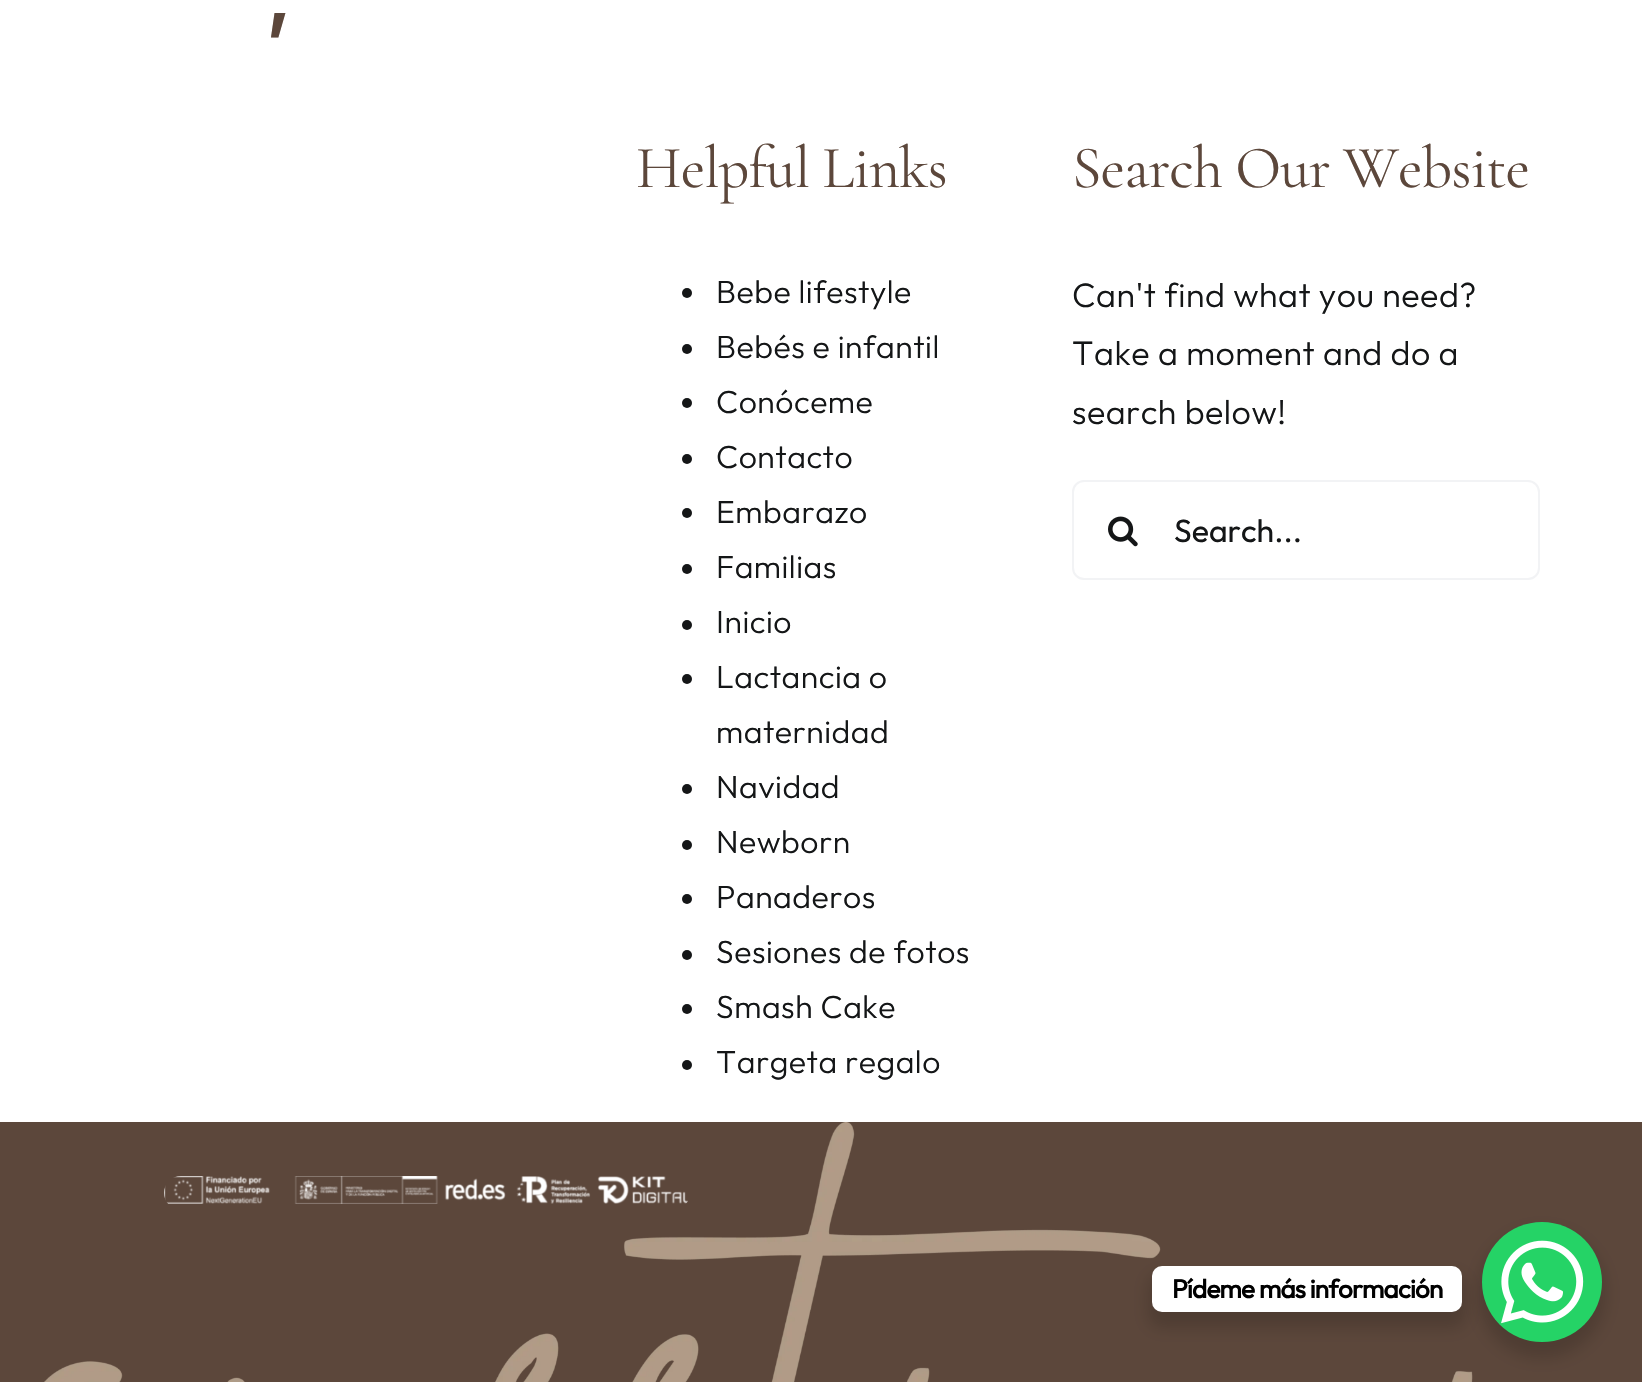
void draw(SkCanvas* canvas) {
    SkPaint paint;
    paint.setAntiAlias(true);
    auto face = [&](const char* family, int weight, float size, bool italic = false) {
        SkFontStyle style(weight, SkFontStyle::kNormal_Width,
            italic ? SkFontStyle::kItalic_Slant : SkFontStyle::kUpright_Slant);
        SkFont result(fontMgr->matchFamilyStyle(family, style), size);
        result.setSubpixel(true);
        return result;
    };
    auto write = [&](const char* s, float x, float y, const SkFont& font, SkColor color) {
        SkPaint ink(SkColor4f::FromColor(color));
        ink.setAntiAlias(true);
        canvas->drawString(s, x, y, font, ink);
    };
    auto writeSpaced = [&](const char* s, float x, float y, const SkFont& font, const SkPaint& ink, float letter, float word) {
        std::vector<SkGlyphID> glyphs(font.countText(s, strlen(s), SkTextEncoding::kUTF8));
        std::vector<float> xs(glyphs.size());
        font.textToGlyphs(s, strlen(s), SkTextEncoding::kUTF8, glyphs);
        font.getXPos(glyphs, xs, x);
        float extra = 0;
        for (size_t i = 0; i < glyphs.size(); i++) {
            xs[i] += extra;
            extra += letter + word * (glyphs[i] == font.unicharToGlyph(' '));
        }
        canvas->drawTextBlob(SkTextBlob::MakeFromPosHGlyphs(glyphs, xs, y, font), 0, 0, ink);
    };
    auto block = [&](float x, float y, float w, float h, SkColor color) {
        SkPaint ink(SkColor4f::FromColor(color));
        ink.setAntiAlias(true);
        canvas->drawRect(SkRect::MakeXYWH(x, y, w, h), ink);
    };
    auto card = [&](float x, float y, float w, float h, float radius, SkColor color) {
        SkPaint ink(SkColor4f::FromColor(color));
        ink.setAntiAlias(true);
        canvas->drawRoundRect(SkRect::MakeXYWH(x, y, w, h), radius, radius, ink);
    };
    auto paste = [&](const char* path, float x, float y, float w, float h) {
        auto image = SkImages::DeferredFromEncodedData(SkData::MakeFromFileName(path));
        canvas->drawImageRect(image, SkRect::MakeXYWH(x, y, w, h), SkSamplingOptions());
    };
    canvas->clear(SK_ColorWHITE);
    auto kFont1 = face("Inter", 600, 83);
    paint.setColor(SkColorSetRGB(92, 71, 59));
    writeSpaced(",", 266, 22, kFont1, paint, -1, 0);
    auto kFont2 = face("Cormorant Garamond", 300, 60);
    writeSpaced("Helpful Links", 636, 187, kFont2, paint, -0.9f, 0);
    paint.setColor(SkColorSetRGB(20, 22, 23));
    canvas->drawCircle(687, 293, 5, paint);
    auto kFont3 = face("Outfit", 300, 32);
    writeSpaced("Bebe lifestyle", 716, 303, kFont3, paint, 0.5f, 0);
    canvas->drawCircle(687, 349, 5, paint);
    writeSpaced("Bebés e infantil", 716, 358, kFont3, paint, 0.5f, 0);
    canvas->drawCircle(687, 403, 5, paint);
    writeSpaced("Conóceme", 716, 413, kFont3, paint, 0.5f, 0);
    canvas->drawCircle(687, 459, 5, paint);
    writeSpaced("Contacto", 716, 468, kFont3, paint, 0.5f, 0);
    canvas->drawCircle(687, 513, 5, paint);
    writeSpaced("Embarazo", 716, 523, kFont3, paint, 0.5f, 0);
    canvas->drawCircle(687, 569, 5, paint);
    writeSpaced("Familias", 716, 578, kFont3, paint, 0.5f, 0);
    canvas->drawCircle(687, 625, 5, paint);
    writeSpaced("Inicio", 716, 633, kFont3, paint, 0.5f, 0);
    canvas->drawCircle(687, 679, 5, paint);
    writeSpaced("Lactancia o", 716, 688, kFont3, paint, 0.5f, 0);
    writeSpaced("maternidad", 716, 743, kFont3, paint, 0.5f, 0);
    canvas->drawCircle(687, 789, 5, paint);
    writeSpaced("Navidad", 716, 798, kFont3, paint, 0.5f, 0);
    canvas->drawCircle(687, 845, 5, paint);
    writeSpaced("Newborn", 716, 853, kFont3, paint, 0.5f, 0);
    canvas->drawCircle(687, 899, 5, paint);
    writeSpaced("Panaderos", 716, 908, kFont3, paint, 0.5f, 0);
    canvas->drawCircle(687, 955, 5, paint);
    writeSpaced("Sesiones de fotos", 716, 963, kFont3, paint, 0.5f, 0);
    canvas->drawCircle(687, 1009, 5, paint);
    writeSpaced("Smash Cake", 716, 1018, kFont3, paint, 0.5f, 0);
    canvas->drawCircle(687, 1065, 5, paint);
    writeSpaced("Targeta regalo", 716, 1073, kFont3, paint, 0.5f, 0);
    paint.setColor(SkColorSetRGB(92, 71, 59));
    writeSpaced("Search Our Website", 1072, 187, kFont2, paint, -0.9f, 0);
    auto kFont4 = face("Outfit", 300, 34);
    paint.setColor(SkColorSetRGB(20, 22, 23));
    writeSpaced("Can't find what you need?", 1072, 307, kFont4, paint, 0.5f, 0);
    writeSpaced("Take a moment and do a", 1072, 365, kFont4, paint, 0.5f, 0);
    writeSpaced("search below!", 1072, 424, kFont4, paint, 0.5f, 0);
    paint.setStyle(SkPaint::kStroke_Style);
    paint.setStrokeWidth(2);
    paint.setColor(SkColorSetRGB(242, 243, 245));
    canvas->drawRoundRect(SkRect::MakeXYWH(1073, 481, 466, 98), 11, 11, paint);
    paste("pic1.png", 1108, 516, 30, 31);
    auto kFont5 = face("Outfit", 400, 32);
    write("Search...", 1174, 542, kFont5, SkColorSetRGB(20, 22, 23));
    block(0, 1122, 1642, 260, SkColorSetRGB(92, 71, 59));
    paste("pic2.png", 44, 1122, 1429, 260);
    paste("pic3.png", 164, 1176, 524, 28);
    paint.setStyle(SkPaint::kFill_Style);
    paint.setColor(SkColorSetARGB(38, 0, 0, 0));
    paint.setMaskFilter(SkMaskFilter::MakeBlur(kNormal_SkBlurStyle, 8));
    canvas->drawRoundRect(SkRect::MakeXYWH(1478, 1230, 128, 128), 64, 64, paint);
    paint.setMaskFilter(nullptr);
    paint.setColor(SkColorSetRGB(37, 211, 102));
    canvas->drawCircle(1542, 1282, 60, paint);
    paint.setColor(SkColorSetARGB(38, 0, 0, 0));
    paint.setMaskFilter(SkMaskFilter::MakeBlur(kNormal_SkBlurStyle, 8));
    canvas->drawRoundRect(SkRect::MakeXYWH(1148, 1274, 318, 54), 14, 14, paint);
    paint.setMaskFilter(nullptr);
    card(1152, 1266, 310, 46, 10, SK_ColorWHITE);
    auto kFont6 = face("Outfit", 700, 26);
    paint.setColor(SK_ColorBLACK);
    writeSpaced("Pídeme más información", 1172, 1298, kFont6, paint, -0.75f, 0);
    paste("pic4.png", 1501, 1240, 83, 84);
}
